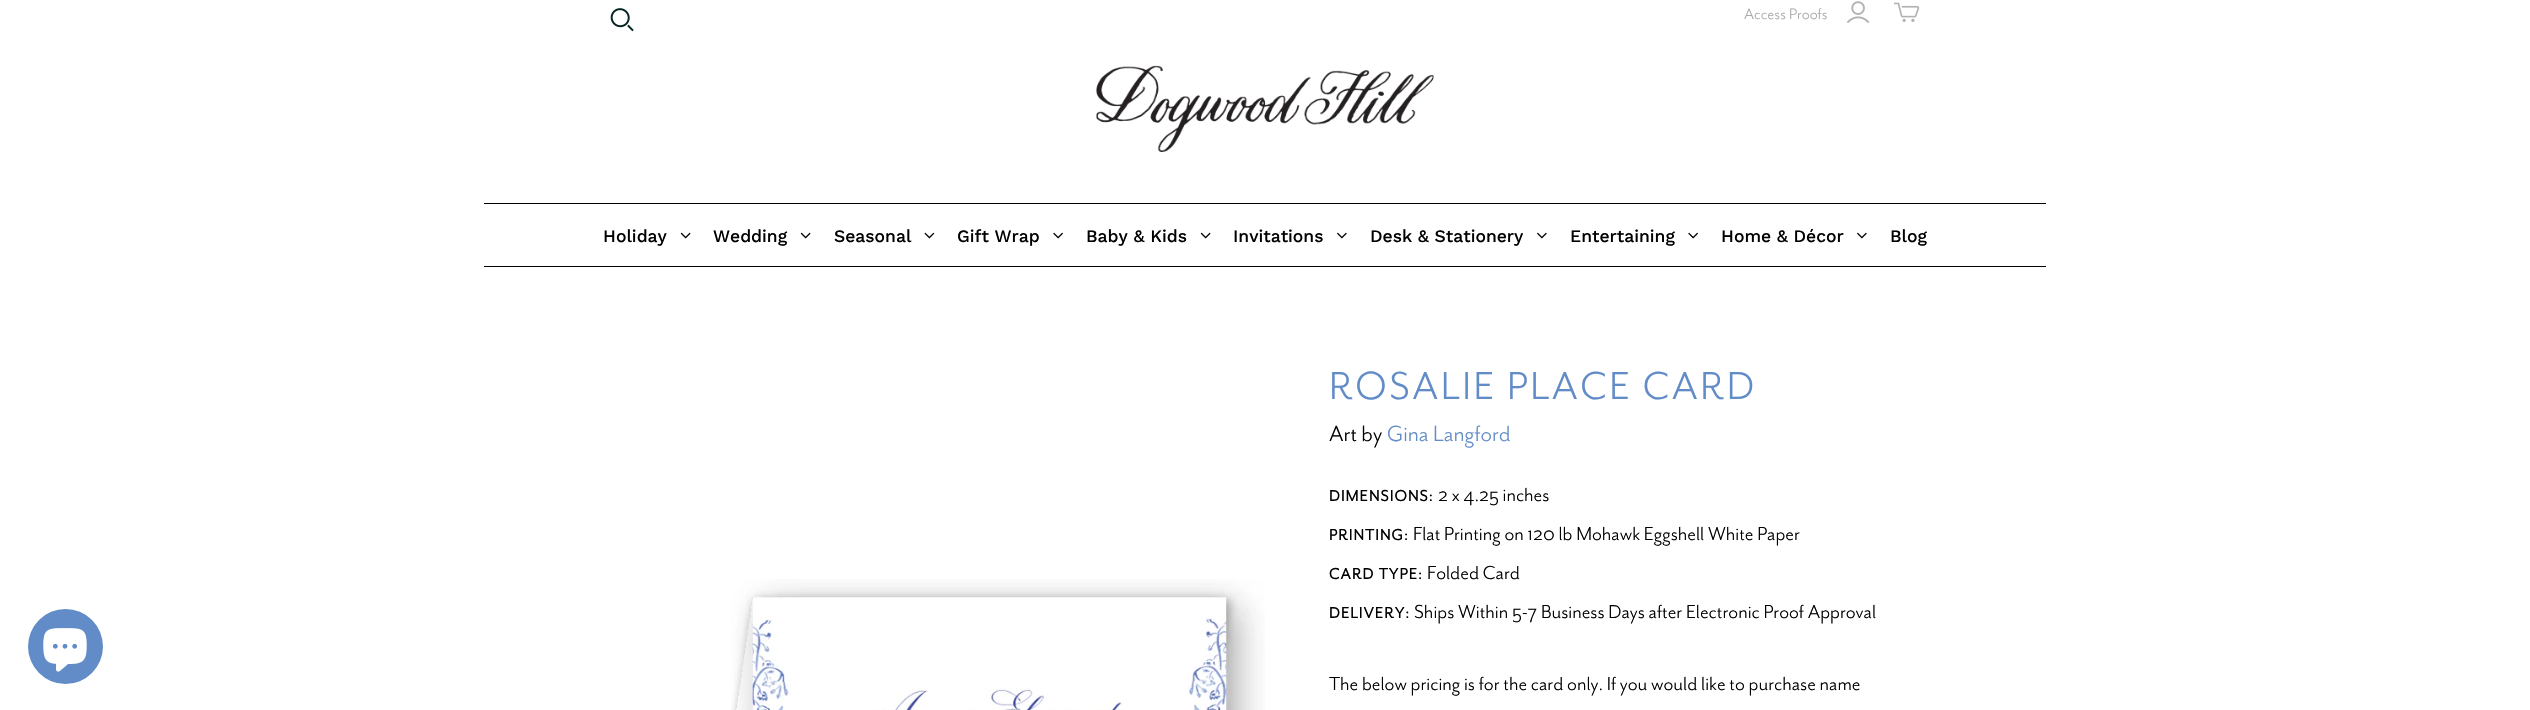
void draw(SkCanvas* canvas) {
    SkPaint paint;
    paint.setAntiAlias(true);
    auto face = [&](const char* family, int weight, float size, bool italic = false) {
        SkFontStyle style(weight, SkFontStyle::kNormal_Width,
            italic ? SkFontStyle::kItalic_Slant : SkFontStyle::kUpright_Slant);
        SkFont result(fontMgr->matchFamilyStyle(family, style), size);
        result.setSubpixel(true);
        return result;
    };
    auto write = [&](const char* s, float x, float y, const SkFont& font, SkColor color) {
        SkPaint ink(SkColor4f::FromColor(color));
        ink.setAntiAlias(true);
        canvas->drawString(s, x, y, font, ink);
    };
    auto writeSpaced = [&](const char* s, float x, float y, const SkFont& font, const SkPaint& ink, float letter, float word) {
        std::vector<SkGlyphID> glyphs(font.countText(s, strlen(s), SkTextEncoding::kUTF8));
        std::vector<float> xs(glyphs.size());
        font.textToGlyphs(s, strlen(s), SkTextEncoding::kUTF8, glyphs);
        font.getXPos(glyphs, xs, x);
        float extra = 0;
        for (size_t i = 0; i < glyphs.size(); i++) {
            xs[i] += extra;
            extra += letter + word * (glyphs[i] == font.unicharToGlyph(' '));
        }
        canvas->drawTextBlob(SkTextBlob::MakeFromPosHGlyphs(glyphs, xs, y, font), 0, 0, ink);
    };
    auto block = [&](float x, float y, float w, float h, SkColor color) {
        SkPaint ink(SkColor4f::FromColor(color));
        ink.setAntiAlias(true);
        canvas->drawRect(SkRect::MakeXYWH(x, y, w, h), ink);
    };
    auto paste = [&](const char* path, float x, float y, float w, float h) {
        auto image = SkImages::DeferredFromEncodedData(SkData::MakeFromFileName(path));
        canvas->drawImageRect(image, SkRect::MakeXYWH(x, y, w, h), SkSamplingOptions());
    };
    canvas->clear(SK_ColorWHITE);
    paste("pic1.png", 610, 8, 24, 24);
    auto kFont1 = face("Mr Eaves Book", 500, 17.5f);
    write("Access Proofs", 1744, 19, kFont1, SkColorSetRGB(170, 170, 170));
    paste("pic2.png", 1847, 1, 23, 22);
    paste("pic3.png", 1894, 2, 26, 20);
    paste("pic4.png", 1096, 65, 338, 87);
    block(484, 203, 1562, 1, SK_ColorBLACK);
    block(484, 266, 1562, 1, SK_ColorBLACK);
    auto kFont2 = face("Work Sans", 500, 17.5f);
    write("Holiday", 603, 242, kFont2, SK_ColorBLACK);
    paste("pic5.png", 680, 232, 11, 7);
    write("Wedding", 713, 242, kFont2, SK_ColorBLACK);
    paste("pic5.png", 800, 232, 11, 7);
    write("Seasonal", 834, 242, kFont2, SK_ColorBLACK);
    paste("pic6.png", 924, 232, 11, 7);
    write("Gift Wrap", 957, 242, kFont2, SK_ColorBLACK);
    paste("pic7.png", 1053, 232, 10, 7);
    write("Baby & Kids", 1086, 242, kFont2, SK_ColorBLACK);
    paste("pic5.png", 1200, 232, 11, 7);
    write("Invitations", 1233, 242, kFont2, SK_ColorBLACK);
    paste("pic8.png", 1337, 232, 10, 7);
    write("Desk & Stationery", 1370, 242, kFont2, SK_ColorBLACK);
    paste("pic8.png", 1537, 232, 10, 7);
    write("Entertaining", 1570, 242, kFont2, SK_ColorBLACK);
    paste("pic7.png", 1688, 232, 10, 7);
    write("Home & Décor", 1721, 242, kFont2, SK_ColorBLACK);
    paste("pic8.png", 1857, 232, 10, 7);
    write("Blog", 1890, 242, kFont2, SK_ColorBLACK);
    paint.setColor(SkColorSetRGB(98, 140, 199));
    canvas->drawCircle(65.5f, 646.5f, 37.5f, paint);
    paste("pic9.png", 43, 628, 44, 44);
    paste("pic10.png", 731, 579, 534, 131);
    auto kFont3 = face("Mr Eaves Book", 500, 45);
    writeSpaced("ROSALIE PLACE CARD", 1329, 399, kFont3, paint, 2.5f, 0);
    auto kFont4 = face("Mr Eaves Book", 500, 25.25f);
    write("Art by", 1329, 441, kFont4, SK_ColorBLACK);
    write("Gina Langford", 1387, 441, kFont4, SkColorSetRGB(98, 140, 199));
    auto kFont5 = face("Mr Eaves Book", 700, 17.5f);
    paint.setColor(SK_ColorBLACK);
    writeSpaced("DIMENSIONS:", 1329, 501, kFont5, paint, 1.25f, 0);
    auto kFont6 = face("Mr Eaves Book", 500, 21.6f);
    write("2 x 4.25 inches", 1438, 501, kFont6, SK_ColorBLACK);
    writeSpaced("PRINTING:", 1329, 540, kFont5, paint, 1.25f, 0);
    write("Flat Printing on 120 lb Mohawk Eggshell White Paper", 1413, 540, kFont6, SK_ColorBLACK);
    writeSpaced("CARD TYPE:", 1329, 579, kFont5, paint, 1.25f, 0);
    write("Folded Card", 1427, 579, kFont6, SK_ColorBLACK);
    writeSpaced("DELIVERY:", 1329, 618, kFont5, paint, 1.25f, 0);
    write("Ships Within 5-7 Business Days after Electronic Proof Approval", 1414, 618, kFont6, SK_ColorBLACK);
    write("The below pricing is for the card only. If you would like to purchase name", 1329, 690, kFont6, SK_ColorBLACK);
}
